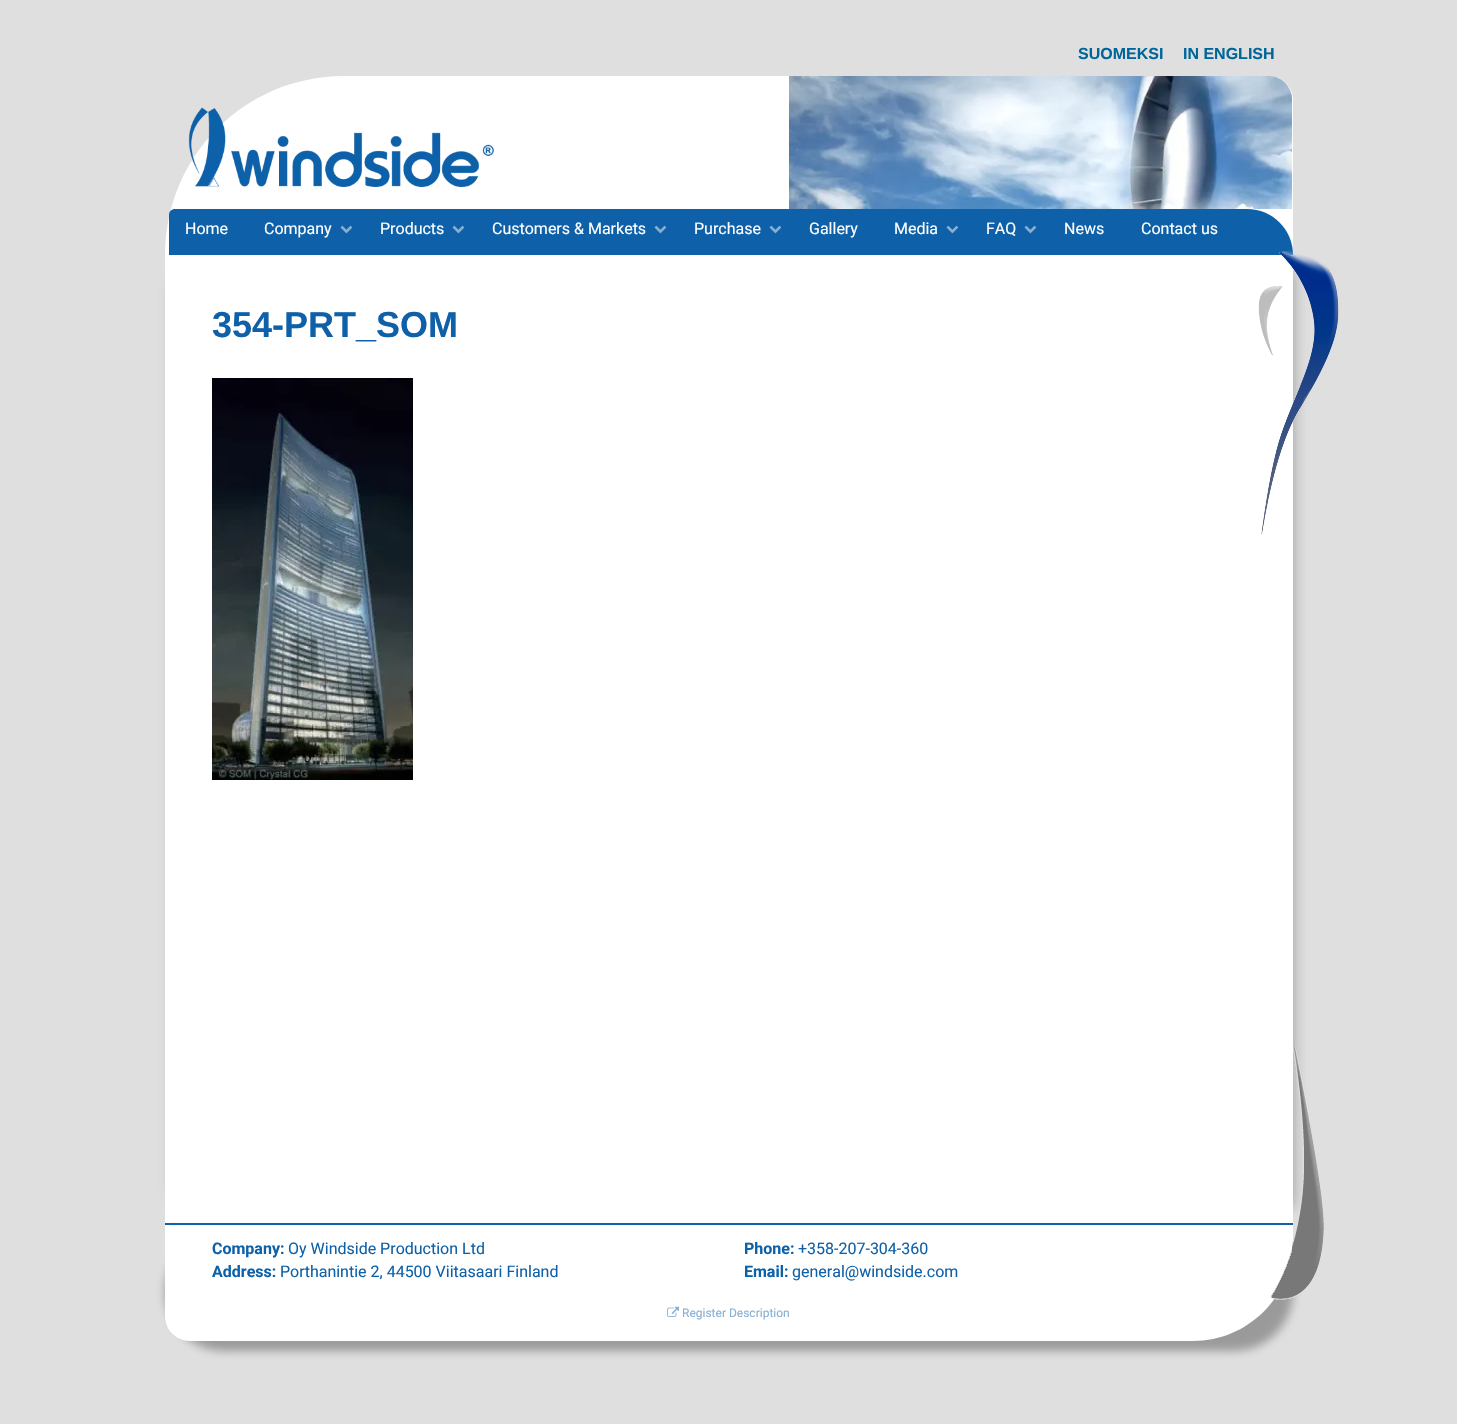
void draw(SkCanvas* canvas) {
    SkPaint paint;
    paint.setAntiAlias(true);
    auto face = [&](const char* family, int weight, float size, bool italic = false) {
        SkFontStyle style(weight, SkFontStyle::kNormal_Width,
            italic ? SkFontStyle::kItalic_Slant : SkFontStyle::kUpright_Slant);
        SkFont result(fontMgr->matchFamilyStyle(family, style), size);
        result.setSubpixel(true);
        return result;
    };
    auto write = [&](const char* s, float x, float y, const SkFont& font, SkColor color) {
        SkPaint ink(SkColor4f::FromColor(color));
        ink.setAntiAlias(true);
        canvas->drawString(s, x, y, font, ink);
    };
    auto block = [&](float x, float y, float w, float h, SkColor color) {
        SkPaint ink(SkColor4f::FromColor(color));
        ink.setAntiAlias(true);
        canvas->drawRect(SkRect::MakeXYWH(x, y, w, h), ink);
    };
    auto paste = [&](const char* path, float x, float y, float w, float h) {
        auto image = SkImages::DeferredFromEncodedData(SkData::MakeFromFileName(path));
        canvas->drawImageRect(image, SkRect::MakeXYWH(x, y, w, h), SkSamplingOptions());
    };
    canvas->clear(SkColorSetRGB(223, 223, 223));
    auto kFont1 = face("Liberation Sans", 700, 16);
    write("SUOMEKSI", 1078, 59, kFont1, SkColorSetRGB(0, 102, 153));
    write("IN ENGLISH", 1183, 59, kFont1, SkColorSetRGB(0, 102, 153));
    paint.setColor(SK_ColorWHITE);
    canvas->drawPath(SkPathBuilder().moveTo(344, 76).lineTo(1269, 76).cubicTo(1282.5f, 76, 1293, 86.5f, 1293, 100).lineTo(1293, 255).lineTo(165, 255).cubicTo(165, 156, 245, 76, 344, 76).close().detach(), paint);
    paste("pic1.png", 188, 107, 306, 80);
    paste("pic2.png", 789, 76, 503, 133);
    paint.setColor(SkColorSetARGB(128, 85, 85, 85));
    paint.setMaskFilter(SkMaskFilter::MakeBlur(kNormal_SkBlurStyle, 7.5f));
    canvas->drawRect(SkRect::MakeXYWH(195, 270, 1098, 938), paint);
    paint.setMaskFilter(nullptr);
    paint.setColor(SkColorSetRGB(14, 97, 169));
    canvas->drawPath(SkPathBuilder().moveTo(175, 209).lineTo(1247, 209).cubicTo(1272.5f, 209, 1293, 229.5f, 1293, 255).lineTo(169, 255).lineTo(169, 215).cubicTo(169, 211.5f, 171.5f, 209, 175, 209).close().detach(), paint);
    auto kFont2 = face("Roboto", 400, 16);
    write("Home", 185, 234, kFont2, SK_ColorWHITE);
    write("Company", 264, 234, kFont2, SK_ColorWHITE);
    paste("pic3.png", 340, 225, 13, 9);
    write("Products", 380, 234, kFont2, SK_ColorWHITE);
    paste("pic3.png", 452, 225, 13, 9);
    write("Customers & Markets", 492, 234, kFont2, SK_ColorWHITE);
    paste("pic3.png", 654, 225, 13, 9);
    write("Purchase", 694, 234, kFont2, SK_ColorWHITE);
    paste("pic3.png", 769, 225, 13, 9);
    write("Gallery", 809, 234, kFont2, SK_ColorWHITE);
    write("Media", 894, 234, kFont2, SK_ColorWHITE);
    paste("pic3.png", 946, 225, 13, 9);
    write("FAQ", 986, 234, kFont2, SK_ColorWHITE);
    paste("pic3.png", 1024, 225, 13, 9);
    write("News", 1064, 234, kFont2, SK_ColorWHITE);
    write("Contact us", 1141, 234, kFont2, SK_ColorWHITE);
    paint.setColor(SkColorSetARGB(128, 85, 85, 85));
    paint.setMaskFilter(SkMaskFilter::MakeBlur(kNormal_SkBlurStyle, 7.5f));
    canvas->drawRect(SkRect::MakeXYWH(175, 280, 1078, 918), paint);
    paint.setMaskFilter(nullptr);
    block(165, 255, 1128, 968, SK_ColorWHITE);
    paste("pic4.png", 1258, 250, 81, 284);
    auto kFont3 = face("Liberation Sans", 700, 36);
    write("354-PRT_SOM", 212, 337, kFont3, SkColorSetRGB(14, 97, 169));
    paste("pic5.png", 212, 378, 201, 402);
    paint.setMaskFilter(SkMaskFilter::MakeBlur(kNormal_SkBlurStyle, 5));
    canvas->drawRoundRect(SkRect::MakeXYWH(165, 1233, 1128, 118), 100, 100, paint);
    paint.setMaskFilter(nullptr);
    paint.setColor(SK_ColorWHITE);
    canvas->drawPath(SkPathBuilder().moveTo(165, 1223).lineTo(1293, 1223).lineTo(1293, 1241).cubicTo(1293, 1296, 1248, 1341, 1193, 1341).lineTo(190, 1341).cubicTo(176, 1341, 165, 1330, 165, 1316).close().detach(), paint);
    block(165, 1223, 1128, 2, SkColorSetRGB(14, 97, 169));
    auto kFont4 = face("Roboto", 700, 16);
    write("Company:", 212, 1254, kFont4, SkColorSetRGB(14, 97, 169));
    write("Oy Windside Production Ltd", 288, 1254, kFont2, SkColorSetRGB(14, 97, 169));
    write("Address:", 212, 1277, kFont4, SkColorSetRGB(14, 97, 169));
    write("Porthanintie 2, 44500 Viitasaari Finland", 280, 1277, kFont2, SkColorSetRGB(14, 97, 169));
    write("Phone:", 744, 1254, kFont4, SkColorSetRGB(14, 97, 169));
    write("+358-207-304-360", 798, 1254, kFont2, SkColorSetRGB(14, 97, 169));
    write("Email:", 744, 1277, kFont4, SkColorSetRGB(14, 97, 169));
    write("general@windside.com", 792, 1277, kFont2, SkColorSetRGB(14, 97, 169));
    paste("pic6.png", 1270, 1047, 54, 253);
    paste("pic7.png", 667, 1306, 12, 11);
    auto kFont5 = face("Roboto", 400, 12);
    write("Register Description", 682, 1317, kFont5, SkColorSetRGB(135, 176, 212));
}
